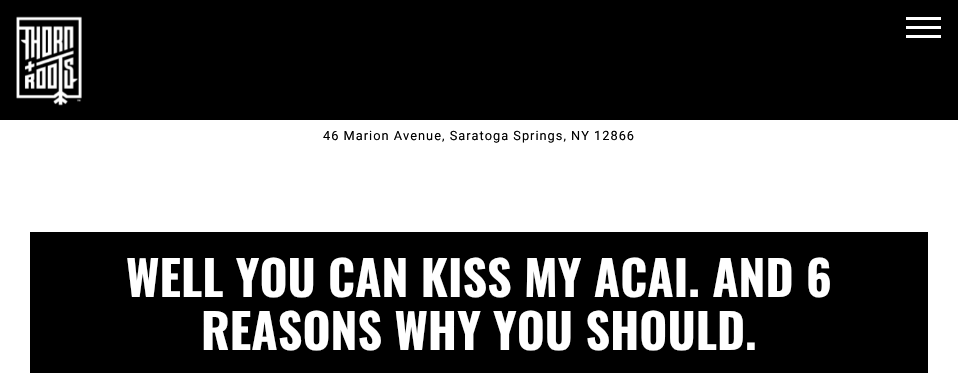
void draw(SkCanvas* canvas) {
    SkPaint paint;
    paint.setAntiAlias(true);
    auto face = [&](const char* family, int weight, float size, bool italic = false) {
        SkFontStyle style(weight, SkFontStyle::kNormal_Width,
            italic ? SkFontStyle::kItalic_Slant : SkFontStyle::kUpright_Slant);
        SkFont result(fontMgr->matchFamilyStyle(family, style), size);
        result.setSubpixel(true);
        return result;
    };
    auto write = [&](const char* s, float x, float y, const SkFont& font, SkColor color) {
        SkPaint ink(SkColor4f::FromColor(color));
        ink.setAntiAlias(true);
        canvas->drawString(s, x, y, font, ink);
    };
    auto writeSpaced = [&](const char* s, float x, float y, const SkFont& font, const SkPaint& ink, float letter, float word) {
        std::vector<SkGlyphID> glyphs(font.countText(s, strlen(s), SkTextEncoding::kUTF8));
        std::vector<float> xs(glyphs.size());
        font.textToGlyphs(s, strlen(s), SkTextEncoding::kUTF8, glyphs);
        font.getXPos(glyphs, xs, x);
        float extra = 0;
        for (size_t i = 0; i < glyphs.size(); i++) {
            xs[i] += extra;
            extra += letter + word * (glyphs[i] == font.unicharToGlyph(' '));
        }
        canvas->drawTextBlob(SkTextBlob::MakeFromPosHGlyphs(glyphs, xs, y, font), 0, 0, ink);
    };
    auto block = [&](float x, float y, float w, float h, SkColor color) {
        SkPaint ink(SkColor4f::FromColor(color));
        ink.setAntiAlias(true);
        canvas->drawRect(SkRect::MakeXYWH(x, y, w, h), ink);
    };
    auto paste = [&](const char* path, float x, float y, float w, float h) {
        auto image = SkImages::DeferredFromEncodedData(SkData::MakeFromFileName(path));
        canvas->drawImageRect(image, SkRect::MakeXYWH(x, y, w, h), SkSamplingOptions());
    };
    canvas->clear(SK_ColorWHITE);
    block(0, 0, 958, 120, SK_ColorBLACK);
    paste("pic1.png", 16, 16, 66, 90);
    block(906, 17, 35, 3, SK_ColorWHITE);
    block(906, 26, 35, 3, SK_ColorWHITE);
    block(906, 35, 35, 3, SK_ColorWHITE);
    auto kFont1 = face("Roboto", 400, 12.8f);
    paint.setColor(SK_ColorBLACK);
    writeSpaced("46 Marion Avenue, Saratoga Springs, NY 12866", 323, 140, kFont1, paint, 1, 0);
    block(30, 232, 898, 141, SK_ColorBLACK);
    auto kFont2 = face("Oswald", 700, 48);
    write("WELL YOU CAN KISS MY ACAI. AND 6", 126, 297, kFont2, SK_ColorWHITE);
    write("REASONS WHY YOU SHOULD.", 201, 350, kFont2, SK_ColorWHITE);
}
